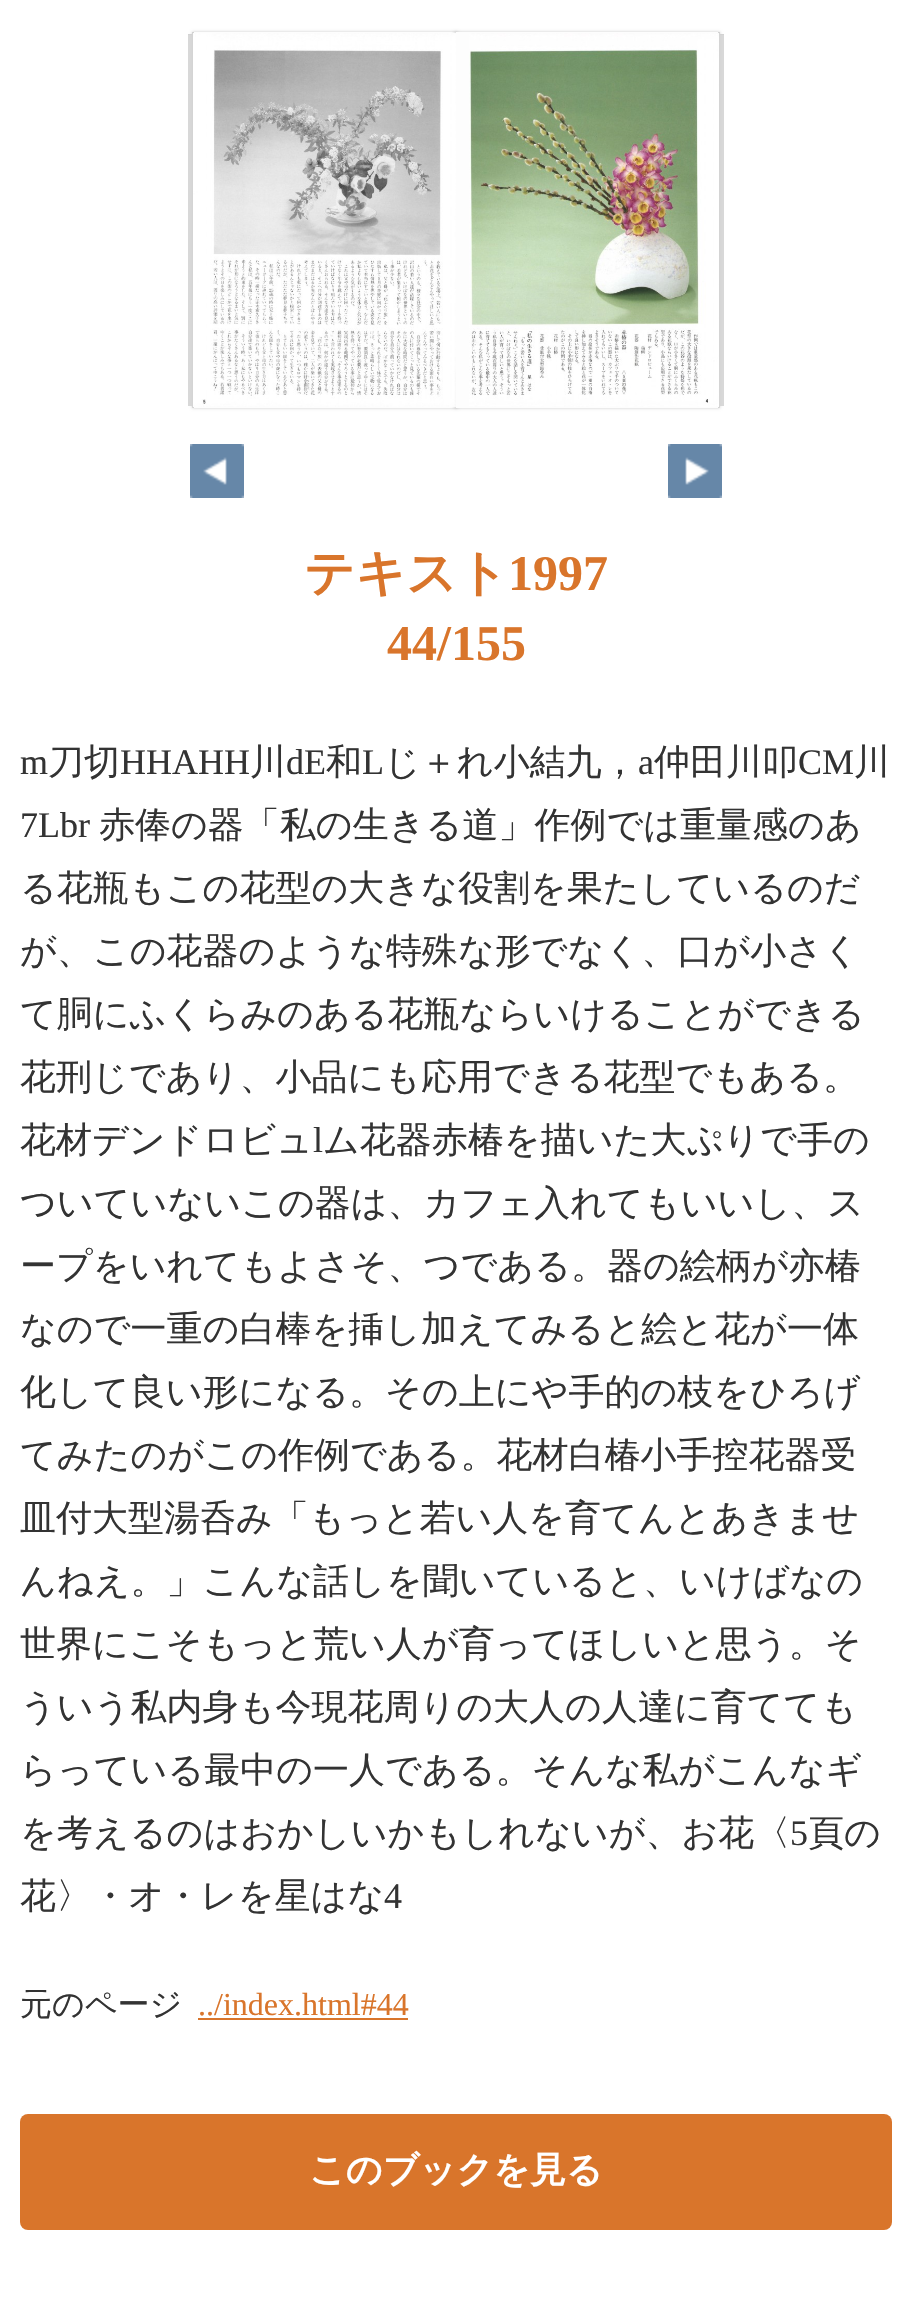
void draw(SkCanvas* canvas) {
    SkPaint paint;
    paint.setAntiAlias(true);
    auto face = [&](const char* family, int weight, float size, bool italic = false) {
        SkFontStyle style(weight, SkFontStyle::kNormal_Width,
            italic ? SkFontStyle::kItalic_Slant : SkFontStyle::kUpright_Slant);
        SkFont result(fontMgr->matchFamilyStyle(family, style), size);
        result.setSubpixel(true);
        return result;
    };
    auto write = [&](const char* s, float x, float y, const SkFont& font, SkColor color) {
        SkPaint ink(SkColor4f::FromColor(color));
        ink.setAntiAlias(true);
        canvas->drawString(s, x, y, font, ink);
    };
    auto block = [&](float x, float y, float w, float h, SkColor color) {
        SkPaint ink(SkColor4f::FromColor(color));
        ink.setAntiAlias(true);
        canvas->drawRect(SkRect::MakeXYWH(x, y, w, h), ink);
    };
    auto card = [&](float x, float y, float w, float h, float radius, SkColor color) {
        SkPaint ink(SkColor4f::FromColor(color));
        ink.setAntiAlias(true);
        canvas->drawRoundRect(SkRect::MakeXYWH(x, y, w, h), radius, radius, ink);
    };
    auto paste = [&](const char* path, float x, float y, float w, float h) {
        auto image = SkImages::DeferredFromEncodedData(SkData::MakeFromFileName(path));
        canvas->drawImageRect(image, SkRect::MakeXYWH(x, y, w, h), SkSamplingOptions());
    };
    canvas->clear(SK_ColorWHITE);
    paint.setColor(SkColorSetARGB(51, 0, 0, 0));
    paint.setMaskFilter(SkMaskFilter::MakeBlur(kNormal_SkBlurStyle, 1.5f));
    canvas->drawRect(SkRect::MakeXYWH(192, 32, 266, 376), paint);
    paint.setMaskFilter(nullptr);
    block(194, 32, 262, 376, SkColorSetRGB(253, 253, 253));
    paint.setStyle(SkPaint::kStroke_Style);
    paint.setStrokeWidth(0.6f);
    paint.setColor(SkColorSetRGB(210, 210, 210));
    canvas->drawRect(SkRect::MakeXYWH(192.3f, 32.3f, 1.4f, 375.4f), paint);
    canvas->drawRect(SkRect::MakeXYWH(188.3f, 34.3f, 1.4f, 371.4f), paint);
    canvas->drawRect(SkRect::MakeXYWH(192.3f, 32.3f, 1.4f, 375.4f), paint);
    canvas->drawRect(SkRect::MakeXYWH(188.3f, 34.3f, 1.4f, 371.4f), paint);
    canvas->drawRect(SkRect::MakeXYWH(190.3f, 34.3f, 1.4f, 371.4f), paint);
    canvas->drawRect(SkRect::MakeXYWH(190.3f, 34.3f, 1.4f, 371.4f), paint);
    paint.setStyle(SkPaint::kFill_Style);
    paint.setColor(SkColorSetARGB(51, 0, 0, 0));
    paint.setMaskFilter(SkMaskFilter::MakeBlur(kNormal_SkBlurStyle, 1.5f));
    canvas->drawRect(SkRect::MakeXYWH(454, 32, 266, 376), paint);
    paint.setMaskFilter(nullptr);
    block(456, 32, 262, 376, SkColorSetRGB(253, 253, 253));
    paint.setStyle(SkPaint::kStroke_Style);
    paint.setColor(SkColorSetRGB(210, 210, 210));
    canvas->drawRect(SkRect::MakeXYWH(718.3f, 32.3f, 1.4f, 375.4f), paint);
    canvas->drawRect(SkRect::MakeXYWH(718.3f, 32.3f, 1.4f, 375.4f), paint);
    canvas->drawRect(SkRect::MakeXYWH(720.3f, 34.3f, 1.4f, 371.4f), paint);
    canvas->drawRect(SkRect::MakeXYWH(720.3f, 34.3f, 1.4f, 371.4f), paint);
    canvas->drawRect(SkRect::MakeXYWH(722.3f, 34.3f, 1.4f, 371.4f), paint);
    canvas->drawRect(SkRect::MakeXYWH(722.3f, 34.3f, 1.4f, 371.4f), paint);
    paste("pic1.png", 193, 33, 263, 374);
    paste("pic2.png", 469, 33, 250, 374);
    paste("pic3.png", 190, 444, 54, 54);
    paste("pic4.png", 668, 444, 54, 54);
    auto kFont1 = face("WenQuanYi Zen Hei", 700, 50);
    write("テキスト", 304, 590, kFont1, SkColorSetRGB(217, 117, 43));
    auto kFont2 = face("Liberation Serif", 700, 50);
    write("1997", 508, 590, kFont2, SkColorSetRGB(217, 117, 43));
    write("44/155", 387, 660, kFont2, SkColorSetRGB(217, 117, 43));
    auto kFont3 = face("Liberation Serif", 400, 36);
    write("m", 20, 774, kFont3, SkColorSetRGB(51, 51, 51));
    auto kFont4 = face("WenQuanYi Zen Hei", 500, 36);
    write("刀切", 48, 774, kFont4, SkColorSetRGB(51, 51, 51));
    write("HHAHH", 120, 774, kFont3, SkColorSetRGB(51, 51, 51));
    write("川", 250, 774, kFont4, SkColorSetRGB(51, 51, 51));
    write("dE", 286, 774, kFont3, SkColorSetRGB(51, 51, 51));
    write("和", 326, 774, kFont4, SkColorSetRGB(51, 51, 51));
    write("L", 362, 774, kFont3, SkColorSetRGB(51, 51, 51));
    write("じ＋れ小結九，", 384, 774, kFont4, SkColorSetRGB(51, 51, 51));
    write("a", 638, 774, kFont3, SkColorSetRGB(51, 51, 51));
    write("仲田川叩", 654, 774, kFont4, SkColorSetRGB(51, 51, 51));
    write("CM", 798, 774, kFont3, SkColorSetRGB(51, 51, 51));
    write("川", 854, 774, kFont4, SkColorSetRGB(51, 51, 51));
    write("7Lbr", 20, 837, kFont3, SkColorSetRGB(51, 51, 51));
    write("赤俸の器「私の生きる道」作例では重量感のあ", 99, 837, kFont4, SkColorSetRGB(51, 51, 51));
    write("る花瓶もこの花型の大きな役割を果たしているのだ", 20, 900, kFont4, SkColorSetRGB(51, 51, 51));
    write("が、この花器のような特殊な形でなく、口が小さく", 20, 963, kFont4, SkColorSetRGB(51, 51, 51));
    write("て胴にふくらみのある花瓶ならいけることができる", 20, 1026, kFont4, SkColorSetRGB(51, 51, 51));
    write("花刑じであり、小品にも応用できる花型でもある。", 20, 1089, kFont4, SkColorSetRGB(51, 51, 51));
    write("花材デンドロビュ", 20, 1152, kFont4, SkColorSetRGB(51, 51, 51));
    write("l", 313, 1152, kFont3, SkColorSetRGB(51, 51, 51));
    write("ム花器赤椿を描いた大ぷりで手の", 323, 1152, kFont4, SkColorSetRGB(51, 51, 51));
    write("ついていないこの器は、カフェ入れてもいいし、ス", 20, 1215, kFont4, SkColorSetRGB(51, 51, 51));
    write("ープをいれてもよさそ、つである。器の絵柄が亦椿", 20, 1278, kFont4, SkColorSetRGB(51, 51, 51));
    write("なので一重の白棒を挿し加えてみると絵と花が一体", 20, 1341, kFont4, SkColorSetRGB(51, 51, 51));
    write("化して良い形になる。その上にや手的の枝をひろげ", 20, 1404, kFont4, SkColorSetRGB(51, 51, 51));
    write("てみたのがこの作例である。花材白椿小手控花器受", 20, 1467, kFont4, SkColorSetRGB(51, 51, 51));
    write("皿付大型湯呑み「もっと若い人を育てんとあきませ", 20, 1530, kFont4, SkColorSetRGB(51, 51, 51));
    write("んねえ。」こんな話しを聞いていると、いけばなの", 20, 1593, kFont4, SkColorSetRGB(51, 51, 51));
    write("世界にこそもっと荒い人が育ってほしいと思う。そ", 20, 1656, kFont4, SkColorSetRGB(51, 51, 51));
    write("ういう私内身も今現花周りの大人の人達に育てても", 20, 1719, kFont4, SkColorSetRGB(51, 51, 51));
    write("らっている最中の一人である。そんな私がこんなギ", 20, 1782, kFont4, SkColorSetRGB(51, 51, 51));
    write("を考えるのはおかしいかもしれないが、お花〈", 20, 1845, kFont4, SkColorSetRGB(51, 51, 51));
    write("5", 790, 1845, kFont3, SkColorSetRGB(51, 51, 51));
    write("頁の", 808, 1845, kFont4, SkColorSetRGB(51, 51, 51));
    write("花〉・オ・レを星はな", 20, 1908, kFont4, SkColorSetRGB(51, 51, 51));
    write("4", 384, 1908, kFont3, SkColorSetRGB(51, 51, 51));
    auto kFont5 = face("WenQuanYi Zen Hei", 500, 32);
    write("元のページ", 20, 2015, kFont5, SkColorSetRGB(51, 51, 51));
    auto kFont6 = face("Liberation Serif", 400, 32);
    write("../index.html#44", 198, 2015, kFont6, SkColorSetRGB(217, 117, 43));
    block(198, 2018, 210, 2, SkColorSetRGB(217, 117, 43));
    card(20, 2114, 872, 116, 8, SkColorSetRGB(217, 117, 43));
    auto kFont7 = face("WenQuanYi Zen Hei", 700, 36);
    write("このブックを見る", 309, 2182, kFont7, SK_ColorWHITE);
}
